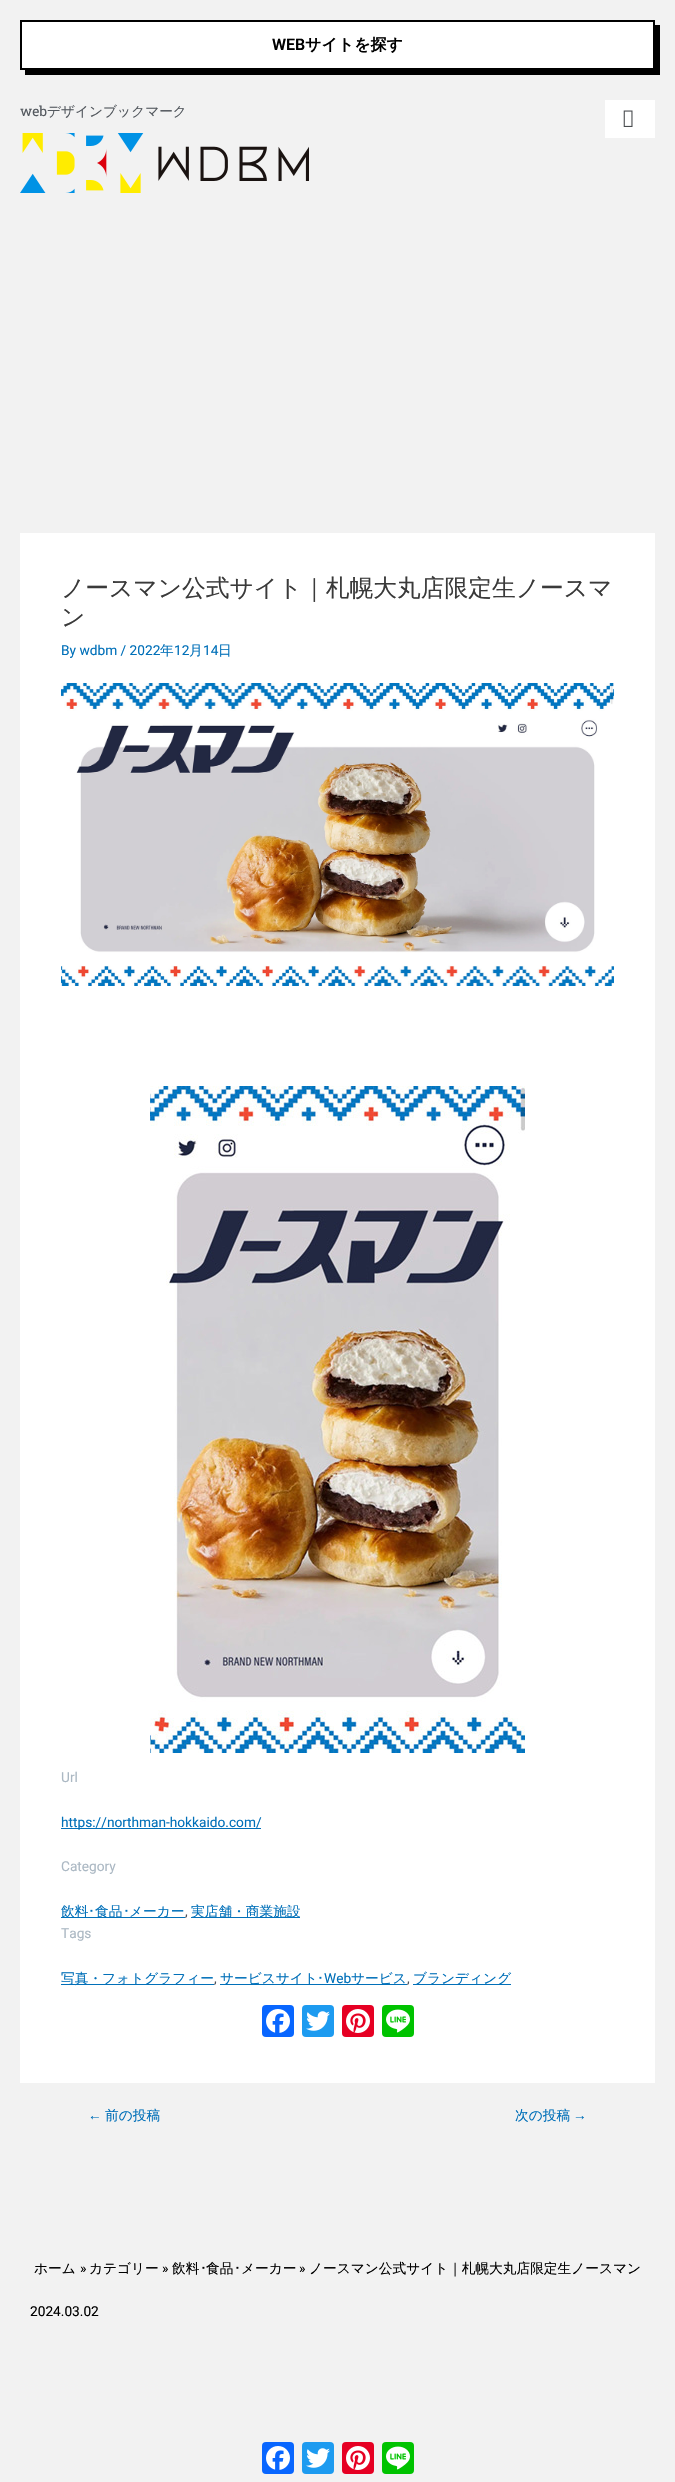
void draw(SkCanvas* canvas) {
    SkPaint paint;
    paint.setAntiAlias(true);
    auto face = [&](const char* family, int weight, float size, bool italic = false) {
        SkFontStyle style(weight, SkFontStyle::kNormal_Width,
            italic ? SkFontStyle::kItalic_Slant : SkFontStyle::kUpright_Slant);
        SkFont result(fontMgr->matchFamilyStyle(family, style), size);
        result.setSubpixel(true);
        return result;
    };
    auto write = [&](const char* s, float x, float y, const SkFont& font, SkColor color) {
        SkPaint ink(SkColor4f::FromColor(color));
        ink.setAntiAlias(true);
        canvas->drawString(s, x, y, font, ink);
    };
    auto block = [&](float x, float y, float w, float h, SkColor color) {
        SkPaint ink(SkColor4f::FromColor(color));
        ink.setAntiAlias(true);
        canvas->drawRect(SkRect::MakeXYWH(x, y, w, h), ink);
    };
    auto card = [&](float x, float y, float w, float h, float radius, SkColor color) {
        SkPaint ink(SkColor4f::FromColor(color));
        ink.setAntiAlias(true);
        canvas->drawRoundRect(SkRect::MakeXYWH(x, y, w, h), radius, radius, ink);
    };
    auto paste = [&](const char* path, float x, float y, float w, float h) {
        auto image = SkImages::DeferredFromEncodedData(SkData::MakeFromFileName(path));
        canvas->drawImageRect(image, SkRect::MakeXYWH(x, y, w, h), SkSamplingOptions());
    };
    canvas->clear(SkColorSetRGB(242, 242, 242));
    paint.setColor(SK_ColorBLACK);
    canvas->drawPath(SkPathBuilder().moveTo(25, 70).lineTo(25, 75).lineTo(660, 75).lineTo(660, 25).lineTo(655, 25).lineTo(655, 70).close().detach(), paint);
    paint.setColor(SK_ColorWHITE);
    canvas->drawRect(SkRect::MakeXYWH(21, 21, 633, 48), paint);
    paint.setStyle(SkPaint::kStroke_Style);
    paint.setStrokeWidth(2);
    paint.setColor(SK_ColorBLACK);
    canvas->drawRect(SkRect::MakeXYWH(21, 21, 633, 48), paint);
    auto kFont1 = face("Roboto", 600, 16);
    write("WEB", 272, 50, kFont1, SK_ColorBLACK);
    auto kFont2 = face("WenQuanYi Zen Hei", 700, 16);
    write("サイトを探す", 305, 50, kFont2, SK_ColorBLACK);
    auto kFont3 = face("Roboto Slab", 400, 13.7f);
    write("web", 20, 116, kFont3, SkColorSetRGB(84, 89, 95));
    auto kFont4 = face("WenQuanYi Zen Hei", 500, 13.7f);
    write("デザインブックマーク", 47, 116, kFont4, SkColorSetRGB(84, 89, 95));
    block(605, 100, 50, 38, SK_ColorWHITE);
    paste("pic1.png", 623, 110, 10, 17);
    paste("pic2.png", 20, 133, 289, 60);
    block(20, 533, 635, 1550, SK_ColorWHITE);
    auto kFont5 = face("WenQuanYi Zen Hei", 500, 23.75f);
    write("ノースマン公式サイト｜札幌大丸店限定生ノースマ", 61, 596, kFont5, SkColorSetRGB(58, 58, 58));
    write("ン", 61, 625, kFont5, SkColorSetRGB(58, 58, 58));
    auto kFont6 = face("Roboto", 400, 13.7f);
    write("By wdbm / 2022", 61, 655, kFont6, SkColorSetRGB(1, 112, 185));
    write("年", 160, 655, kFont4, SkColorSetRGB(1, 112, 185));
    write("12", 174, 655, kFont6, SkColorSetRGB(1, 112, 185));
    write("月", 189, 655, kFont4, SkColorSetRGB(1, 112, 185));
    write("14", 203, 655, kFont6, SkColorSetRGB(1, 112, 185));
    write("日", 218, 655, kFont4, SkColorSetRGB(1, 112, 185));
    paste("pic3.png", 61, 683, 553, 303);
    paste("pic4.png", 150, 1086, 375, 667);
    write("Url", 61, 1782, kFont6, SkColorSetRGB(171, 184, 195));
    block(61, 1828, 200, 1, SkColorSetRGB(1, 112, 185));
    write("https://northman-hokkaido.com/", 61, 1827, kFont6, SkColorSetRGB(1, 112, 185));
    write("Category", 61, 1871, kFont6, SkColorSetRGB(171, 184, 195));
    block(61, 1917, 124, 1, SkColorSetRGB(1, 112, 185));
    write("飲料", 61, 1916, kFont4, SkColorSetRGB(1, 112, 185));
    auto kFont7 = face("IPAPGothic", 400, 13.7f);
    write("･", 88, 1916, kFont7, SkColorSetRGB(1, 112, 185));
    write("食品", 95, 1916, kFont4, SkColorSetRGB(1, 112, 185));
    write("･", 123, 1916, kFont7, SkColorSetRGB(1, 112, 185));
    write("メーカー", 129, 1916, kFont4, SkColorSetRGB(1, 112, 185));
    block(191, 1917, 109, 1, SkColorSetRGB(1, 112, 185));
    write("実店舗・商業施設", 191, 1916, kFont4, SkColorSetRGB(1, 112, 185));
    write(",", 185, 1916, kFont6, SkColorSetRGB(75, 79, 88));
    write("Tags", 61, 1938, kFont6, SkColorSetRGB(171, 184, 195));
    block(61, 1984, 153, 1, SkColorSetRGB(1, 112, 185));
    write("写真・フォトグラフィー", 61, 1983, kFont4, SkColorSetRGB(1, 112, 185));
    block(220, 1984, 187, 1, SkColorSetRGB(1, 112, 185));
    write("サービスサイト", 220, 1983, kFont4, SkColorSetRGB(1, 112, 185));
    write("･", 317, 1983, kFont7, SkColorSetRGB(1, 112, 185));
    write("Web", 324, 1983, kFont6, SkColorSetRGB(1, 112, 185));
    write("サービス", 351, 1983, kFont4, SkColorSetRGB(1, 112, 185));
    block(413, 1984, 98, 1, SkColorSetRGB(1, 112, 185));
    write("ブランディング", 413, 1983, kFont4, SkColorSetRGB(1, 112, 185));
    write(",", 214, 1983, kFont6, SkColorSetRGB(75, 79, 88));
    write(",", 407, 1983, kFont6, SkColorSetRGB(75, 79, 88));
    card(262, 2005, 32, 32, 4, SkColorSetRGB(8, 102, 255));
    paste("pic5.png", 266, 2009, 24, 24);
    card(302, 2005, 32, 32, 4, SkColorSetRGB(29, 155, 240));
    paste("pic6.png", 306, 2011, 24, 20);
    card(342, 2005, 32, 32, 4, SkColorSetRGB(230, 0, 35));
    paste("pic7.png", 346, 2009, 24, 24);
    card(382, 2005, 32, 32, 4, SkColorSetRGB(0, 195, 0));
    paste("pic8.png", 386, 2009, 24, 24);
    auto kFont8 = face("Liberation Sans", 400, 13.7f);
    write("←", 88, 2120, kFont8, SkColorSetRGB(1, 112, 185));
    write("前の投稿", 105, 2120, kFont4, SkColorSetRGB(1, 112, 185));
    write("次の投稿", 515, 2120, kFont4, SkColorSetRGB(1, 112, 185));
    write("→", 573, 2120, kFont8, SkColorSetRGB(1, 112, 185));
    write("ホーム", 34, 2273, kFont4, SK_ColorBLACK);
    write("»", 80, 2273, kFont6, SK_ColorBLACK);
    write("カテゴリー", 89, 2273, kFont4, SK_ColorBLACK);
    write("»", 162, 2273, kFont6, SK_ColorBLACK);
    write("飲料", 172, 2273, kFont4, SK_ColorBLACK);
    write("･", 200, 2273, kFont7, SK_ColorBLACK);
    write("食品", 206, 2273, kFont4, SK_ColorBLACK);
    write("･", 234, 2273, kFont7, SK_ColorBLACK);
    write("メーカー", 241, 2273, kFont4, SK_ColorBLACK);
    write("»", 299, 2273, kFont6, SK_ColorBLACK);
    write("ノースマン公式サイト｜札幌大丸店限定生ノースマン", 309, 2273, kFont4, SK_ColorBLACK);
    write("2024.03.02", 30, 2316, kFont6, SK_ColorBLACK);
    card(262, 2442, 32, 32, 4, SkColorSetRGB(8, 102, 255));
    paste("pic5.png", 266, 2446, 24, 24);
    card(302, 2442, 32, 32, 4, SkColorSetRGB(29, 155, 240));
    paste("pic6.png", 306, 2448, 24, 20);
    card(342, 2442, 32, 32, 4, SkColorSetRGB(230, 0, 35));
    paste("pic7.png", 346, 2446, 24, 24);
    card(382, 2442, 32, 32, 4, SkColorSetRGB(0, 195, 0));
    paste("pic8.png", 386, 2446, 24, 24);
}
